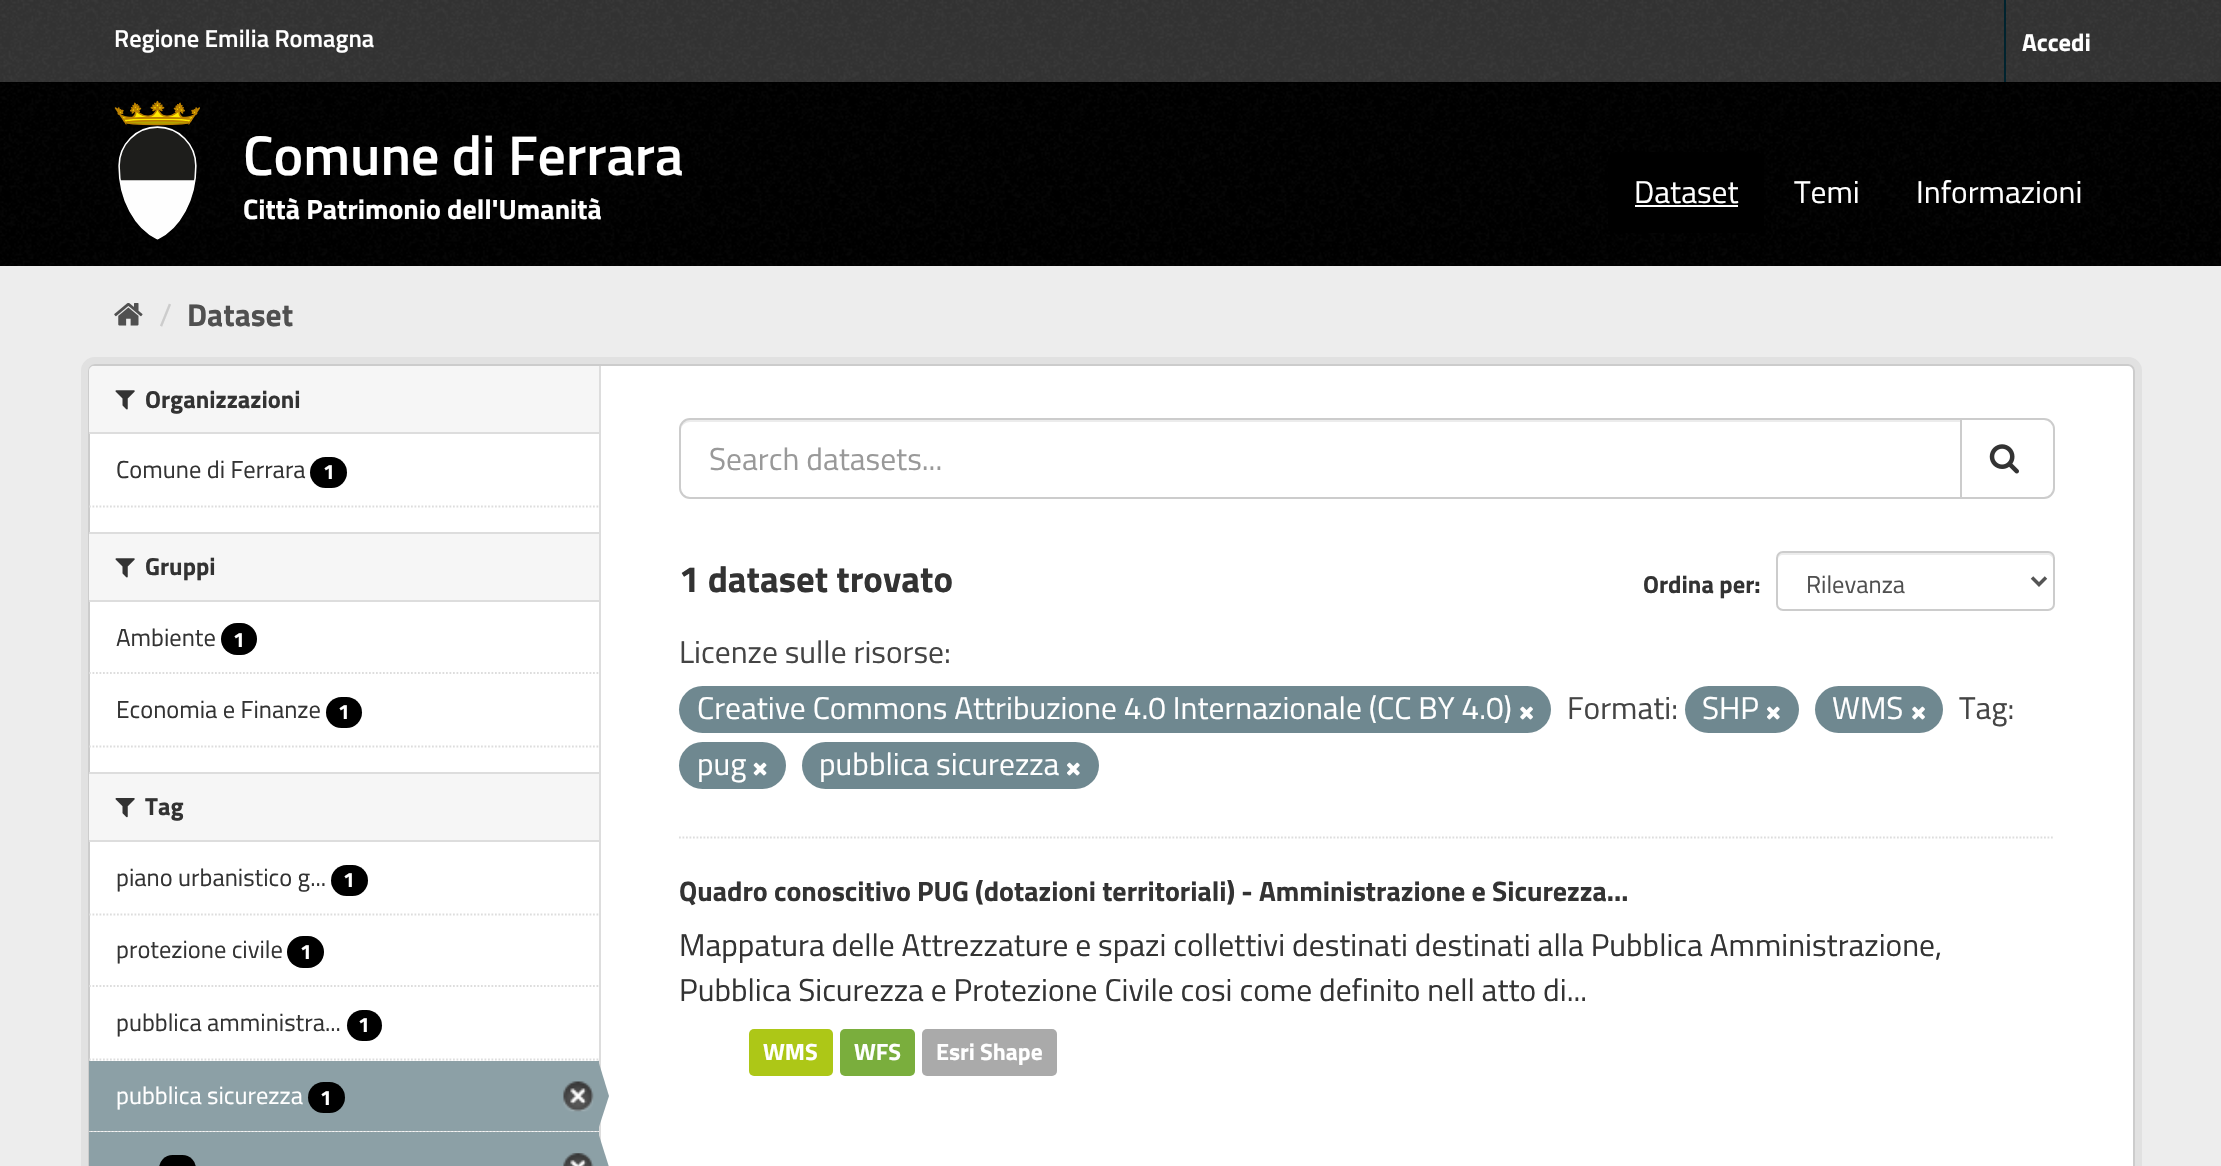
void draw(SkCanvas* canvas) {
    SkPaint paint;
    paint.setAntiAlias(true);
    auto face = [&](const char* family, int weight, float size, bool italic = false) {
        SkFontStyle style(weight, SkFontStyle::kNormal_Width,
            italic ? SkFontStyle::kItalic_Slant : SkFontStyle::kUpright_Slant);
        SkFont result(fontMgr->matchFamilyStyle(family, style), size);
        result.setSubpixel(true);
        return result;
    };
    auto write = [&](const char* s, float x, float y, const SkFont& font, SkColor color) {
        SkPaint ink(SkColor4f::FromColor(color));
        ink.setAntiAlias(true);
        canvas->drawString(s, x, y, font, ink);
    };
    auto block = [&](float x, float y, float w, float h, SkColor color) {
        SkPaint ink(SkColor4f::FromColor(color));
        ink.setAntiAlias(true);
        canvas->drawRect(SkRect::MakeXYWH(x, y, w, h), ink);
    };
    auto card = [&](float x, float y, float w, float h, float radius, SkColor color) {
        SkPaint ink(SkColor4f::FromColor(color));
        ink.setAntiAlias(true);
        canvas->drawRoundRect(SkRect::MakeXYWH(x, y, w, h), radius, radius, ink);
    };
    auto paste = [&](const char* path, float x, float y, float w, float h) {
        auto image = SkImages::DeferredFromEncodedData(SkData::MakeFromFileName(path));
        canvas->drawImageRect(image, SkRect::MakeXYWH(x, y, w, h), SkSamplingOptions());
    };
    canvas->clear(SkColorSetRGB(51, 51, 51));
    paste("pic1.png", 0, 0, 2221, 82);
    auto kFont1 = face("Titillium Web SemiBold", 600, 24.5f);
    write("Regione Emilia Romagna", 114, 47, kFont1, SK_ColorWHITE);
    block(2004, 0, 2, 82, SkColorSetRGB(0, 35, 46));
    auto kFont2 = face("Titillium Web", 700, 24.5f);
    write("Accedi", 2022, 51, kFont2, SK_ColorWHITE);
    block(0, 82, 2221, 184, SK_ColorBLACK);
    paste("pic2.png", 0, 83, 2221, 183);
    paste("pic3.png", 114, 100, 86, 140);
    auto kFont3 = face("Titillium Web SemiBold", 600, 56);
    write("Comune di Ferrara", 243, 175, kFont3, SK_ColorWHITE);
    auto kFont4 = face("Titillium Web", 700, 28);
    write("Città Patrimonio dell'Umanità", 243, 219, kFont4, SK_ColorWHITE);
    card(1608, 152, 156, 81, 7, SK_ColorBLACK);
    auto kFont5 = face("Titillium Web", 400, 31.5f);
    write("Dataset", 1634, 203, kFont5, SK_ColorWHITE);
    block(1635, 205, 103, 2, SK_ColorWHITE);
    write("Temi", 1794, 203, kFont5, SK_ColorWHITE);
    write("Informazioni", 1916, 203, kFont5, SK_ColorWHITE);
    block(0, 266, 2221, 900, SkColorSetRGB(237, 237, 237));
    paste("pic4.png", 114, 303, 29, 23);
    write("/", 159, 326, kFont5, SkColorSetRGB(204, 204, 204));
    auto kFont6 = face("Titillium Web", 700, 31.5f);
    write("Dataset", 187, 326, kFont6, SkColorSetRGB(80, 80, 80));
    paint.setStyle(SkPaint::kStroke_Style);
    paint.setStrokeWidth(7);
    paint.setColor(SkColorSetRGB(225, 225, 225));
    canvas->drawRoundRect(SkRect::MakeXYWH(84.5f, 360.5f, 2054, 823), 10.5f, 10.5f, paint);
    paint.setStyle(SkPaint::kFill_Style);
    paint.setColor(SK_ColorWHITE);
    canvas->drawRoundRect(SkRect::MakeXYWH(89, 365, 2045, 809), 6, 6, paint);
    paint.setStyle(SkPaint::kStroke_Style);
    paint.setStrokeWidth(2);
    paint.setColor(SkColorSetRGB(204, 204, 204));
    canvas->drawRoundRect(SkRect::MakeXYWH(89, 365, 2045, 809), 6, 6, paint);
    paint.setStyle(SkPaint::kFill_Style);
    paint.setColor(SkColorSetRGB(246, 246, 246));
    canvas->drawPath(SkPathBuilder().moveTo(94, 366).lineTo(599, 366).lineTo(599, 434).lineTo(89, 434).lineTo(89, 371).cubicTo(89, 368, 91, 366, 94, 366).close().detach(), paint);
    block(89, 432, 510, 2, SkColorSetRGB(221, 221, 221));
    paste("pic5.png", 115, 390, 20, 20);
    write("Organizzazioni", 145, 408, kFont2, SkColorSetRGB(51, 51, 51));
    auto kFont7 = face("Titillium Web", 400, 24.5f);
    write("Comune di Ferrara", 116, 478, kFont7, SkColorSetRGB(51, 51, 51));
    card(310, 457, 37, 31, 15.5f, SK_ColorBLACK);
    auto kFont8 = face("Titillium Web", 700, 21);
    write("1", 323, 479, kFont8, SK_ColorWHITE);
    paint.setStyle(SkPaint::kStroke_Style);
    paint.setStrokeWidth(1.8f);
    paint.setColor(SkColorSetRGB(221, 221, 221));
    paint.setPathEffect(SkDashPathEffect::Make({{1.75f, 1.75f}}, 0));
    canvas->drawPath(SkPathBuilder().moveTo(89, 506.5f).lineTo(598.5f, 506.5f).detach(), paint);
    paint.setPathEffect(nullptr);
    block(89, 534, 510, 66, SkColorSetRGB(246, 246, 246));
    block(89, 532, 510, 2, SkColorSetRGB(221, 221, 221));
    block(89, 600, 510, 2, SkColorSetRGB(221, 221, 221));
    paste("pic5.png", 115, 558, 20, 20);
    write("Gruppi", 145, 575, kFont2, SkColorSetRGB(51, 51, 51));
    paint.setPathEffect(SkDashPathEffect::Make({{1.75f, 1.75f}}, 0));
    canvas->drawPath(SkPathBuilder().moveTo(89, 673).lineTo(598.5f, 673).detach(), paint);
    paint.setPathEffect(nullptr);
    write("Ambiente", 116, 646, kFont7, SkColorSetRGB(51, 51, 51));
    card(221, 623, 36, 32, 16, SK_ColorBLACK);
    write("1", 233, 647, kFont8, SK_ColorWHITE);
    write("Economia e Finanze", 116, 718, kFont7, SkColorSetRGB(51, 51, 51));
    card(326, 697, 36, 31, 15.5f, SK_ColorBLACK);
    write("1", 338, 719, kFont8, SK_ColorWHITE);
    paint.setPathEffect(SkDashPathEffect::Make({{1.75f, 1.75f}}, 0));
    canvas->drawPath(SkPathBuilder().moveTo(89, 746.5f).lineTo(598.5f, 746.5f).detach(), paint);
    paint.setPathEffect(nullptr);
    block(89, 774, 510, 66, SkColorSetRGB(246, 246, 246));
    block(89, 772, 510, 2, SkColorSetRGB(221, 221, 221));
    block(89, 840, 510, 2, SkColorSetRGB(221, 221, 221));
    paste("pic6.png", 115, 798, 20, 20);
    write("Tag", 145, 815, kFont2, SkColorSetRGB(51, 51, 51));
    paint.setPathEffect(SkDashPathEffect::Make({{1.75f, 1.75f}}, 0));
    canvas->drawPath(SkPathBuilder().moveTo(89, 914.5f).lineTo(598.5f, 914.5f).detach(), paint);
    paint.setPathEffect(nullptr);
    write("piano urbanistico g...", 116, 886, kFont7, SkColorSetRGB(51, 51, 51));
    card(331, 865, 37, 31, 15.5f, SK_ColorBLACK);
    write("1", 343, 887, kFont8, SK_ColorWHITE);
    paint.setPathEffect(SkDashPathEffect::Make({{1.75f, 1.75f}}, 0));
    canvas->drawPath(SkPathBuilder().moveTo(89, 986).lineTo(598.5f, 986).detach(), paint);
    paint.setPathEffect(nullptr);
    write("protezione civile", 116, 958, kFont7, SkColorSetRGB(51, 51, 51));
    card(287, 936, 37, 32, 16, SK_ColorBLACK);
    write("1", 300, 959, kFont8, SK_ColorWHITE);
    paint.setPathEffect(SkDashPathEffect::Make({{1.75f, 1.75f}}, 0));
    canvas->drawPath(SkPathBuilder().moveTo(89, 1059.5f).lineTo(598.5f, 1059.5f).detach(), paint);
    paint.setPathEffect(nullptr);
    write("pubblica amministra...", 116, 1031, kFont7, SkColorSetRGB(51, 51, 51));
    card(347, 1010, 35, 31, 15.5f, SK_ColorBLACK);
    write("1", 358, 1032, kFont8, SK_ColorWHITE);
    block(90, 1131, 509, 1, SkColorSetRGB(246, 246, 246));
    paint.setPathEffect(SkDashPathEffect::Make({{1.75f, 1.75f}}, 0));
    canvas->drawPath(SkPathBuilder().moveTo(89, 1131.5f).lineTo(598.5f, 1131.5f).detach(), paint);
    paint.setPathEffect(nullptr);
    block(89, 1061, 510, 70, SkColorSetRGB(140, 160, 166));
    write("pubblica sicurezza", 116, 1104, kFont7, SK_ColorWHITE);
    card(308, 1082, 37, 31, 15.5f, SK_ColorBLACK);
    write("1", 320, 1105, kFont8, SK_ColorWHITE);
    paste("pic7.png", 563, 1081, 31, 31);
    block(599, 366, 2, 776, SkColorSetRGB(221, 221, 221));
    paint.setStyle(SkPaint::kFill_Style);
    paint.setColor(SkColorSetRGB(140, 160, 166));
    canvas->drawPath(SkPathBuilder().moveTo(598, 1130).lineTo(598, 1060).lineTo(609, 1096).close().detach(), paint);
    block(89, 1132, 510, 34, SkColorSetRGB(140, 160, 166));
    card(159, 1155, 37, 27, 16, SK_ColorBLACK);
    paste("pic8.png", 563, 1153, 31, 13);
    canvas->drawPath(SkPathBuilder().moveTo(598, 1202).lineTo(598, 1132).lineTo(609, 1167).close().detach(), paint);
    paint.setStyle(SkPaint::kStroke_Style);
    paint.setColor(SkColorSetRGB(221, 221, 221));
    paint.setPathEffect(SkDashPathEffect::Make({{1.75f, 1.75f}}, 0));
    canvas->drawPath(SkPathBuilder().moveTo(679, 837.5f).lineTo(2054.5f, 837.5f).detach(), paint);
    paint.setPathEffect(nullptr);
    paint.setStyle(SkPaint::kFill_Style);
    paint.setColor(SkColorSetRGB(236, 236, 236));
    canvas->drawPath(SkPathBuilder().moveTo(690, 422).lineTo(1960, 422).lineTo(1960, 420).lineTo(690, 420).cubicTo(685, 420, 681, 424, 681, 429).lineTo(681, 430).cubicTo(681, 426, 685, 422, 690, 422).close().detach(), paint);
    paint.setStyle(SkPaint::kStroke_Style);
    paint.setStrokeWidth(2);
    paint.setColor(SkColorSetRGB(204, 204, 204));
    canvas->drawPath(SkPathBuilder().moveTo(690, 419).lineTo(1961, 419).lineTo(1961, 498).lineTo(690, 498).cubicTo(684.5f, 498, 680, 493.5f, 680, 488).lineTo(680, 429).cubicTo(680, 423.5f, 684.5f, 419, 690, 419).close().detach(), paint);
    write("Search datasets...", 709, 470, kFont5, SkColorSetRGB(153, 153, 153));
    paint.setStyle(SkPaint::kFill_Style);
    paint.setColor(SK_ColorWHITE);
    canvas->drawPath(SkPathBuilder().moveTo(1961, 419).lineTo(2044, 419).cubicTo(2049.5f, 419, 2054, 423.5f, 2054, 429).lineTo(2054, 488).cubicTo(2054, 493.5f, 2049.5f, 498, 2044, 498).lineTo(1961, 498).close().detach(), paint);
    paint.setStyle(SkPaint::kStroke_Style);
    paint.setColor(SkColorSetRGB(204, 204, 204));
    canvas->drawPath(SkPathBuilder().moveTo(1961, 419).lineTo(2044, 419).cubicTo(2049.5f, 419, 2054, 423.5f, 2054, 429).lineTo(2054, 488).cubicTo(2054, 493.5f, 2049.5f, 498, 2044, 498).lineTo(1961, 498).close().detach(), paint);
    paste("pic9.png", 1989, 444, 30, 30);
    auto kFont9 = face("Titillium Web", 700, 36.75f);
    write("1 dataset trovato", 679, 592, kFont9, SkColorSetRGB(51, 51, 51));
    write("Ordina per:", 1643, 593, kFont2, SkColorSetRGB(51, 51, 51));
    paint.setStyle(SkPaint::kFill_Style);
    paint.setColor(SkColorSetRGB(236, 236, 236));
    canvas->drawPath(SkPathBuilder().moveTo(1783, 555).lineTo(2048, 555).cubicTo(2050, 555, 2053, 557, 2053, 560).lineTo(2053, 558).cubicTo(2053, 555, 2051, 553, 2048, 553).lineTo(1783, 553).cubicTo(1780, 553, 1778, 555, 1778, 558).lineTo(1778, 560).cubicTo(1778, 557, 1780, 555, 1783, 555).close().detach(), paint);
    paint.setStyle(SkPaint::kStroke_Style);
    paint.setColor(SkColorSetRGB(204, 204, 204));
    canvas->drawRoundRect(SkRect::MakeXYWH(1777, 552, 277, 58), 6, 6, paint);
    paint.setStrokeWidth(3.5f);
    paint.setColor(SkColorSetRGB(85, 85, 85));
    canvas->drawPath(SkPathBuilder().moveTo(2032, 577.5f).lineTo(2039, 584.5f).lineTo(2046, 577.5f).detach(), paint);
    write("Rilevanza", 1806, 593, kFont7, SkColorSetRGB(80, 80, 80));
    write("Licenze sulle risorse:", 679, 663, kFont5, SkColorSetRGB(68, 68, 68));
    card(679, 686, 872, 47, 23.5f, SkColorSetRGB(111, 136, 144));
    write("Creative Commons Attribuzione 4.0 Internazionale (CC BY 4.0)", 697, 719, kFont5, SK_ColorWHITE);
    paste("pic10.png", 1520, 706, 13, 14);
    write("Formati:", 1567, 719, kFont5, SkColorSetRGB(68, 68, 68));
    card(1685, 686, 114, 47, 23.5f, SkColorSetRGB(111, 136, 144));
    write("SHP", 1702, 719, kFont5, SK_ColorWHITE);
    paste("pic11.png", 1767, 706, 13, 14);
    card(1815, 686, 128, 47, 23.5f, SkColorSetRGB(111, 136, 144));
    write("WMS", 1832, 719, kFont5, SK_ColorWHITE);
    paste("pic12.png", 1912, 706, 13, 14);
    write("Tag:", 1959, 719, kFont5, SkColorSetRGB(68, 68, 68));
    card(679, 742, 107, 47, 23.5f, SkColorSetRGB(111, 136, 144));
    write("pug", 697, 775, kFont5, SK_ColorWHITE);
    paste("pic13.png", 753, 762, 14, 14);
    card(802, 742, 297, 47, 23.5f, SkColorSetRGB(111, 136, 144));
    write("pubblica sicurezza", 819, 775, kFont5, SK_ColorWHITE);
    paste("pic11.png", 1067, 762, 13, 14);
    write("Quadro conoscitivo PUG (dotazioni territoriali) - Amministrazione e Sicurezza...", 679, 901, kFont4, SkColorSetRGB(51, 51, 51));
    write("Mappatura delle Attrezzature e spazi collettivi destinati destinati alla Pubblica Amministrazione,", 679, 956, kFont5, SkColorSetRGB(51, 51, 51));
    write("Pubblica Sicurezza e Protezione Civile cosi come definito nell atto di...", 679, 1001, kFont5, SkColorSetRGB(51, 51, 51));
    card(749, 1029, 84, 47, 5, SkColorSetRGB(173, 199, 23));
    auto kFont10 = face("Titillium Web", 700, 23.5f);
    write("WMS", 763, 1060, kFont10, SK_ColorWHITE);
    card(840, 1029, 75, 47, 5, SkColorSetRGB(122, 174, 61));
    write("WFS", 854, 1060, kFont10, SK_ColorWHITE);
    card(922, 1029, 135, 47, 5, SkColorSetRGB(170, 170, 170));
    write("Esri Shape", 936, 1060, kFont10, SK_ColorWHITE);
}
